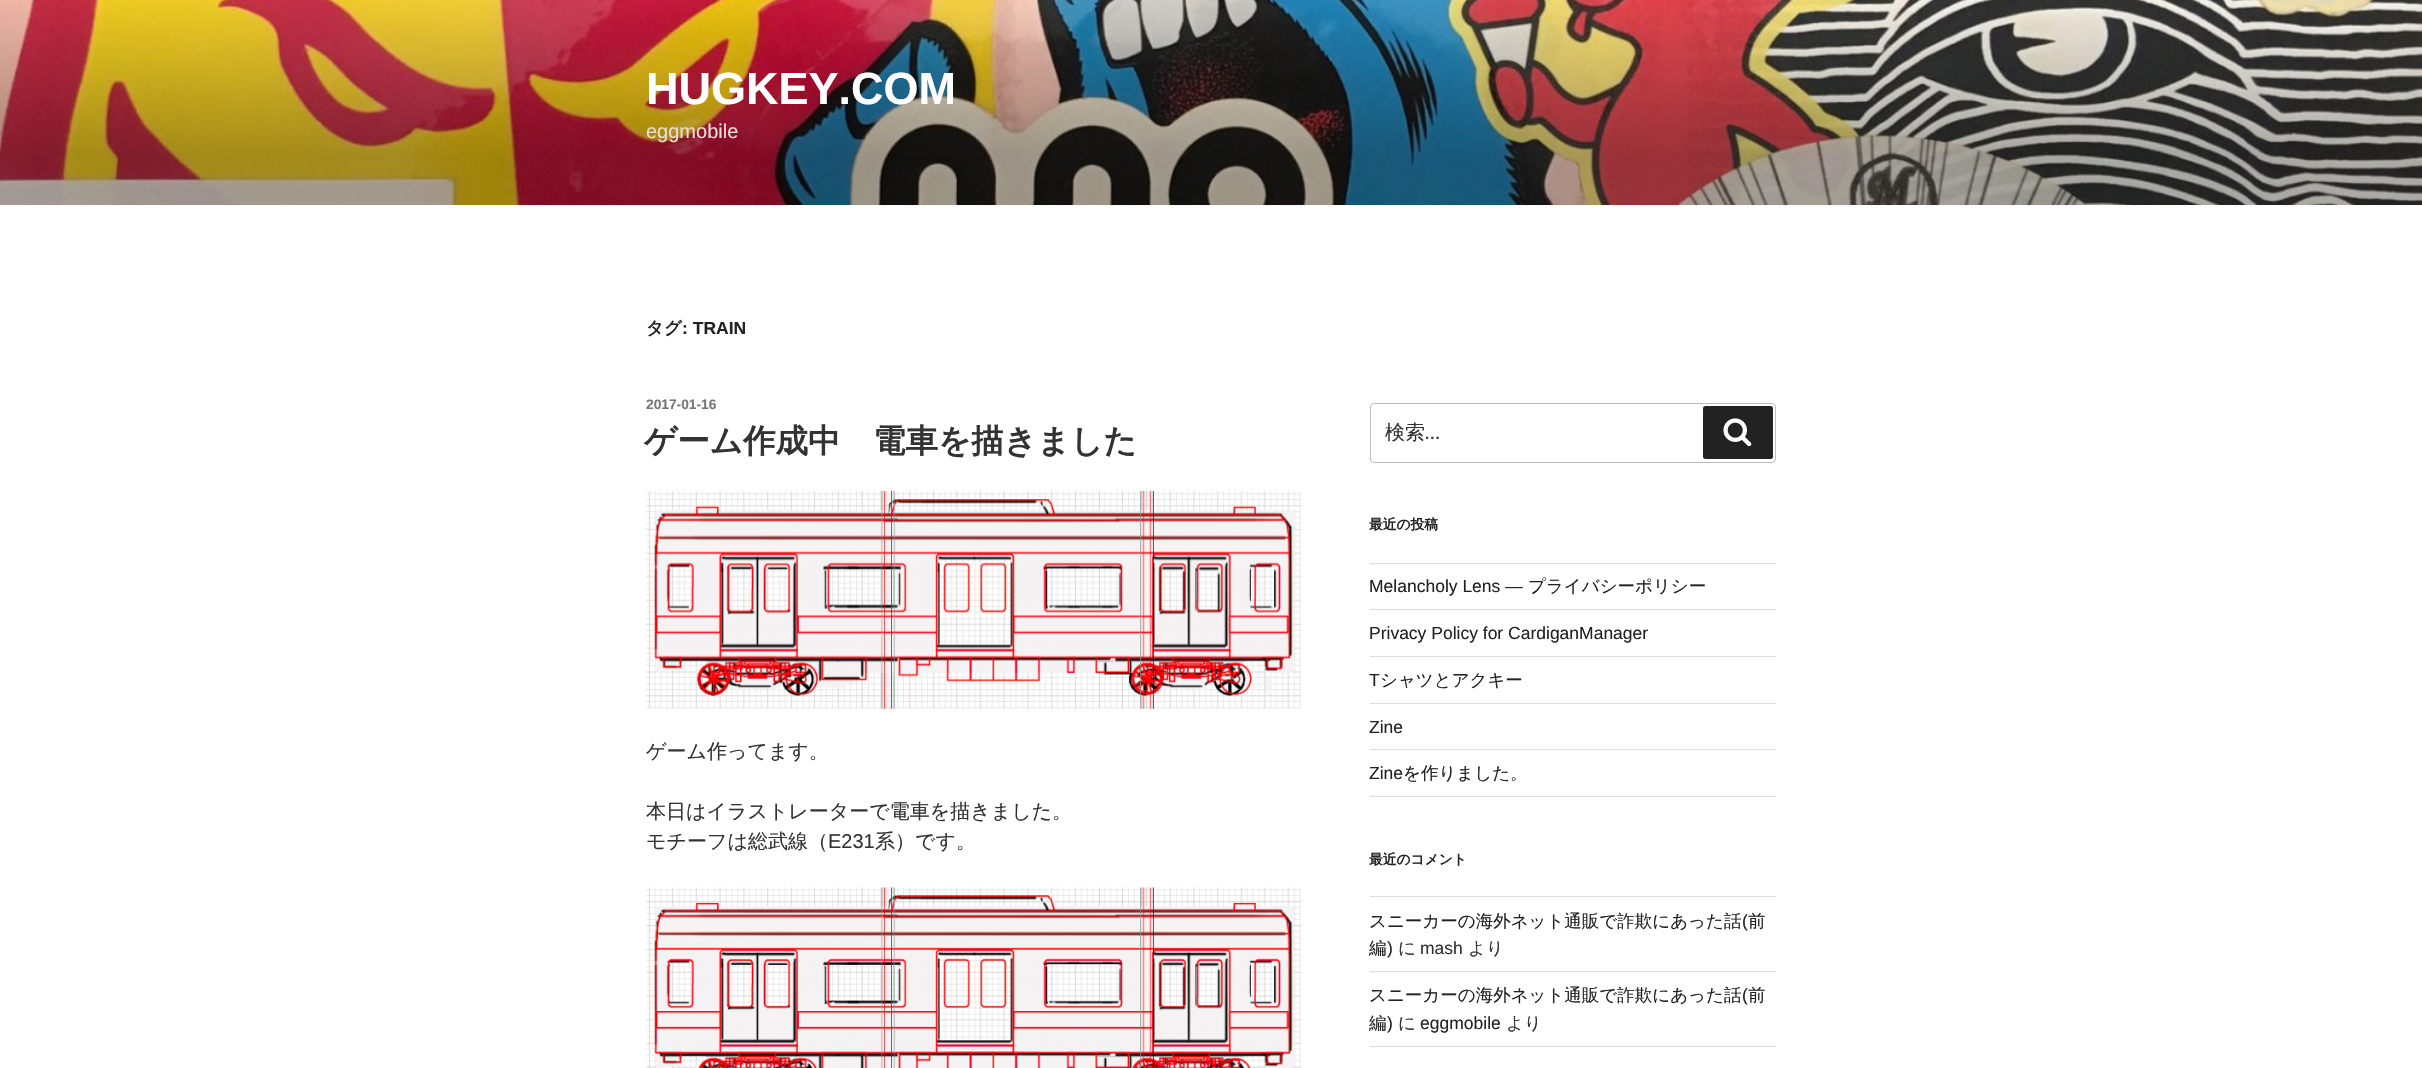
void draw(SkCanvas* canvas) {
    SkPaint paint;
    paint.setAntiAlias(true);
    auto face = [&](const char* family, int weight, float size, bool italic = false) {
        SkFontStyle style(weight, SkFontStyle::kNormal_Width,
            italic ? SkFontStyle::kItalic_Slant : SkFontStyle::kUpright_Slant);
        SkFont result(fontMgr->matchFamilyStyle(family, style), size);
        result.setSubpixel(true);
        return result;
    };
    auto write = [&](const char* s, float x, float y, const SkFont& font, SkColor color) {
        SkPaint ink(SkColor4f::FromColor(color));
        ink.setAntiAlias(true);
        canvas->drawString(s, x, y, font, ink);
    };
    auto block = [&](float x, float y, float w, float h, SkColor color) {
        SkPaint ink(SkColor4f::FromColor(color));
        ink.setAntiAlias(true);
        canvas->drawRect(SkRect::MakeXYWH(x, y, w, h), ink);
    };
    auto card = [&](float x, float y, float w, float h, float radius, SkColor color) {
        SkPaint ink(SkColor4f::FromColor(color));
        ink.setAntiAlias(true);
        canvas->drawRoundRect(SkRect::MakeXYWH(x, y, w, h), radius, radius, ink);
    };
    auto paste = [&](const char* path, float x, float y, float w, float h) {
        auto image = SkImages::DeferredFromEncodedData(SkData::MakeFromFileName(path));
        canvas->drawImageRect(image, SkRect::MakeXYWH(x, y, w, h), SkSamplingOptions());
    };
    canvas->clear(SK_ColorWHITE);
    block(0, 205, 2422, 1, SkColorSetRGB(250, 250, 250));
    paste("pic1.png", 0, 0, 2422, 205);
    auto kFont1 = face("Liberation Sans", 700, 45);
    write("HUGKEY.COM", 646, 104, kFont1, SK_ColorWHITE);
    auto kFont2 = face("Liberation Sans", 400, 20);
    write("eggmobile", 646, 138, kFont2, SkColorSetRGB(235, 219, 211));
    auto kFont3 = face("WenQuanYi Zen Hei", 700, 17.5f);
    write("タグ", 646, 334, kFont3, SkColorSetRGB(34, 34, 34));
    auto kFont4 = face("Liberation Sans", 700, 17.5f);
    write(": TRAIN", 682, 334, kFont4, SkColorSetRGB(34, 34, 34));
    auto kFont5 = face("Liberation Sans", 700, 13.75f);
    write("2017-01-16", 646, 409, kFont5, SkColorSetRGB(118, 118, 118));
    auto kFont6 = face("WenQuanYi Zen Hei", 700, 32.5f);
    write("ゲーム作成中　電車を描きました", 644, 452, kFont6, SkColorSetRGB(51, 51, 51));
    paste("pic2.png", 646, 491, 656, 218);
    auto kFont7 = face("WenQuanYi Zen Hei", 500, 20);
    write("ゲーム作ってます。", 646, 758, kFont7, SkColorSetRGB(51, 51, 51));
    write("本日はイラストレーターで電車を描きました。", 646, 818, kFont7, SkColorSetRGB(51, 51, 51));
    write("モチーフは総武線（", 646, 848, kFont7, SkColorSetRGB(51, 51, 51));
    write("E231", 828, 848, kFont2, SkColorSetRGB(51, 51, 51));
    write("系）です。", 875, 848, kFont7, SkColorSetRGB(51, 51, 51));
    paste("pic3.png", 646, 887, 656, 181);
    paint.setStyle(SkPaint::kStroke_Style);
    paint.setStrokeWidth(1);
    paint.setColor(SkColorSetRGB(187, 187, 187));
    canvas->drawRoundRect(SkRect::MakeXYWH(1370.5f, 403.5f, 405, 59), 3.5f, 3.5f, paint);
    write("検索", 1385, 439, kFont7, SkColorSetRGB(51, 51, 51));
    auto kFont8 = face("Libre Franklin", 400, 20);
    write("…", 1425, 439, kFont8, SkColorSetRGB(51, 51, 51));
    card(1703, 406, 70, 53, 2.5f, SkColorSetRGB(34, 34, 34));
    paste("pic4.png", 1723, 418, 29, 28);
    auto kFont9 = face("WenQuanYi Zen Hei", 700, 13.75f);
    write("最近の投稿", 1369, 529, kFont9, SkColorSetRGB(34, 34, 34));
    block(1370, 563, 406, 1, SkColorSetRGB(221, 221, 221));
    block(1370, 609, 406, 1, SkColorSetRGB(221, 221, 221));
    auto kFont10 = face("Liberation Sans", 400, 17.5f);
    write("Melancholy Lens —", 1369, 592, kFont10, SkColorSetRGB(34, 34, 34));
    auto kFont11 = face("WenQuanYi Zen Hei", 500, 17.5f);
    write("プライバシーポリシー", 1528, 592, kFont11, SkColorSetRGB(34, 34, 34));
    block(1370, 656, 406, 1, SkColorSetRGB(221, 221, 221));
    write("Privacy Policy for CardiganManager", 1369, 639, kFont10, SkColorSetRGB(34, 34, 34));
    block(1370, 703, 406, 1, SkColorSetRGB(221, 221, 221));
    write("T", 1369, 686, kFont10, SkColorSetRGB(34, 34, 34));
    write("シャツとアクキー", 1380, 686, kFont11, SkColorSetRGB(34, 34, 34));
    block(1370, 749, 406, 1, SkColorSetRGB(221, 221, 221));
    write("Zine", 1369, 733, kFont10, SkColorSetRGB(34, 34, 34));
    block(1370, 796, 406, 1, SkColorSetRGB(221, 221, 221));
    write("Zine", 1369, 779, kFont10, SkColorSetRGB(34, 34, 34));
    write("を作りました。", 1403, 779, kFont11, SkColorSetRGB(34, 34, 34));
    write("最近のコメント", 1369, 864, kFont9, SkColorSetRGB(34, 34, 34));
    block(1370, 896, 406, 1, SkColorSetRGB(221, 221, 221));
    block(1370, 971, 406, 1, SkColorSetRGB(221, 221, 221));
    write("スニーカーの海外ネット通販で詐欺にあった話", 1369, 927, kFont11, SkColorSetRGB(34, 34, 34));
    write("(", 1742, 927, kFont10, SkColorSetRGB(34, 34, 34));
    write("前", 1748, 927, kFont11, SkColorSetRGB(34, 34, 34));
    write("編", 1369, 954, kFont11, SkColorSetRGB(34, 34, 34));
    write(")", 1387, 954, kFont10, SkColorSetRGB(34, 34, 34));
    write("に", 1398, 954, kFont11, SkColorSetRGB(51, 51, 51));
    write("mash", 1420, 954, kFont10, SkColorSetRGB(51, 51, 51));
    write("より", 1468, 954, kFont11, SkColorSetRGB(51, 51, 51));
    block(1370, 1046, 406, 1, SkColorSetRGB(221, 221, 221));
    write("スニーカーの海外ネット通販で詐欺にあった話", 1369, 1001, kFont11, SkColorSetRGB(34, 34, 34));
    write("(", 1742, 1001, kFont10, SkColorSetRGB(34, 34, 34));
    write("前", 1748, 1001, kFont11, SkColorSetRGB(34, 34, 34));
    write("編", 1369, 1029, kFont11, SkColorSetRGB(34, 34, 34));
    write(")", 1387, 1029, kFont10, SkColorSetRGB(34, 34, 34));
    write("に", 1398, 1029, kFont11, SkColorSetRGB(51, 51, 51));
    write("eggmobile", 1420, 1029, kFont10, SkColorSetRGB(34, 34, 34));
    write("より", 1506, 1029, kFont11, SkColorSetRGB(51, 51, 51));
}
